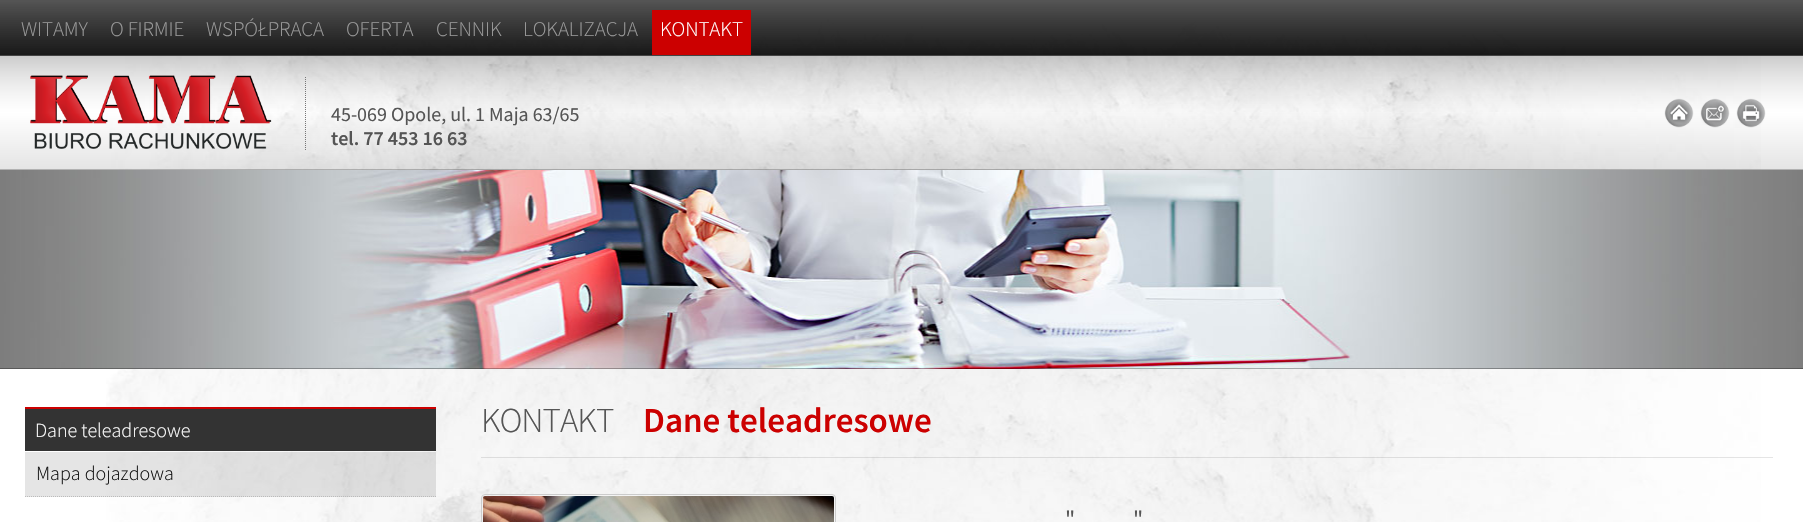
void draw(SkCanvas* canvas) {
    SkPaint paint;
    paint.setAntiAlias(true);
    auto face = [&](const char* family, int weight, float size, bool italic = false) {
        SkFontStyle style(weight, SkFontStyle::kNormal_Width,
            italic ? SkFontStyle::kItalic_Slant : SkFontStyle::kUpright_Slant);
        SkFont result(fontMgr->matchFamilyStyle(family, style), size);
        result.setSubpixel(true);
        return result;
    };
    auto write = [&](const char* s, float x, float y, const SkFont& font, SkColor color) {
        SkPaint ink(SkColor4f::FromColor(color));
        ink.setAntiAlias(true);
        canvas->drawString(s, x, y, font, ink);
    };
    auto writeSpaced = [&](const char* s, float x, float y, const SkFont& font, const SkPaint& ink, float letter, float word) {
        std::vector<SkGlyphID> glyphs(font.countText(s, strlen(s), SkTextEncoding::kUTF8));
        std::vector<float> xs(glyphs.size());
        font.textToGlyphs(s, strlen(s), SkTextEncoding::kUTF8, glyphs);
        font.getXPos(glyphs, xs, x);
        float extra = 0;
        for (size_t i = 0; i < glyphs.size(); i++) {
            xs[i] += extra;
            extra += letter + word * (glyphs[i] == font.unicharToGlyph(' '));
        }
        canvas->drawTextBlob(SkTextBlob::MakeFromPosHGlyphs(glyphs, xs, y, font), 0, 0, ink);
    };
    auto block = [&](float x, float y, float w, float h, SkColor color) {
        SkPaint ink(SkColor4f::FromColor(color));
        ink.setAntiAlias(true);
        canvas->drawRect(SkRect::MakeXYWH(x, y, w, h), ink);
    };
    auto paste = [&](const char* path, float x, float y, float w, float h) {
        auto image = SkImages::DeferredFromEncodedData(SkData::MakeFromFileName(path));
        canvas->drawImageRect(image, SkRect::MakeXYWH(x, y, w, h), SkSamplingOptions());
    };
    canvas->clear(SK_ColorWHITE);
    paste("pic1.png", 106, 3, 1655, 519);
    {
        const SkColor colors[] = {SkColorSetRGB(85, 85, 85), SkColorSetARGB(230, 0, 0, 0)};
        const float stops[] = {0, 1};
        const SkPoint ends[] = {{902, 0}, {902, 55}};
        paint.setShader(SkGradientShader::MakeLinear(ends, colors, stops, 2, SkTileMode::kClamp));
        paint.setAlpha(255);
    }
    canvas->drawRect(SkRect::MakeXYWH(0, 0, 1803, 55), paint);
    block(0, 55, 1803, 1, SkColorSetRGB(68, 68, 68));
    auto kFont1 = face("Source Sans Pro", 300, 21);
    paint.setShader(nullptr);
    paint.setColor(SkColorSetRGB(153, 153, 153));
    writeSpaced("WITAMY", 21, 36, kFont1, paint, -0.1f, 0);
    writeSpaced("O FIRMIE", 110, 36, kFont1, paint, -0.1f, 0);
    writeSpaced("WSPÓŁPRACA", 206, 36, kFont1, paint, -0.1f, 0);
    writeSpaced("OFERTA", 346, 36, kFont1, paint, -0.1f, 0);
    writeSpaced("CENNIK", 436, 36, kFont1, paint, -0.1f, 0);
    writeSpaced("LOKALIZACJA", 523, 36, kFont1, paint, -0.1f, 0);
    block(652, 10, 99, 45, SkColorSetRGB(204, 0, 0));
    paint.setColor(SK_ColorWHITE);
    writeSpaced("KONTAKT", 660, 36, kFont1, paint, -0.1f, 0);
    {
        const SkColor colors[] = {SkColorSetARGB(51, 0, 0, 0), SkColorSetARGB(26, 255, 255, 255), SkColorSetARGB(26, 0, 0, 0)};
        const float stops[] = {0, 0.5f, 1};
        const SkPoint ends[] = {{902, 56}, {902, 169}};
        paint.setShader(SkGradientShader::MakeLinear(ends, colors, stops, 3, SkTileMode::kClamp));
        paint.setAlpha(255);
    }
    canvas->drawRect(SkRect::MakeXYWH(0, 56, 1803, 113), paint);
    paste("pic2.png", 30, 75, 242, 74);
    paint.setStyle(SkPaint::kStroke_Style);
    paint.setStrokeWidth(1);
    paint.setShader(nullptr);
    paint.setColor(SkColorSetRGB(119, 119, 119));
    paint.setPathEffect(SkDashPathEffect::Make({{1, 1}}, 0));
    canvas->drawPath(SkPathBuilder().moveTo(305.5f, 77).lineTo(305.5f, 150).detach(), paint);
    paint.setPathEffect(nullptr);
    auto kFont2 = face("Source Sans Pro", 400, 20);
    write("45-069 Opole, ul. 1 Maja 63/65", 331, 121, kFont2, SkColorSetRGB(85, 85, 85));
    auto kFont3 = face("Source Sans Pro", 600, 20);
    write("tel. 77 453 16 63", 331, 145, kFont3, SkColorSetRGB(85, 85, 85));
    paste("pic3.png", 1664, 98, 30, 30);
    paste("pic4.png", 1700, 98, 30, 30);
    paste("pic5.png", 1736, 98, 30, 30);
    paste("pic6.png", 0, 170, 1803, 199);
    block(0, 169, 1803, 1, SkColorSetARGB(77, 0, 0, 0));
    block(0, 368, 1803, 1, SkColorSetARGB(77, 0, 0, 0));
    block(25, 409, 411, 42, SkColorSetRGB(51, 51, 51));
    block(25, 407, 411, 2, SkColorSetRGB(204, 0, 0));
    auto kFont4 = face("Source Sans Pro", 300, 20);
    write("Dane teleadresowe", 35, 437, kFont4, SK_ColorWHITE);
    block(25, 452, 411, 45, SkColorSetARGB(26, 0, 0, 0));
    paint.setColor(SkColorSetRGB(187, 187, 187));
    paint.setPathEffect(SkDashPathEffect::Make({{1, 1}}, 0));
    canvas->drawPath(SkPathBuilder().moveTo(25, 496.5f).lineTo(436, 496.5f).detach(), paint);
    paint.setPathEffect(nullptr);
    write("Mapa dojazdowa", 36, 480, kFont4, SkColorSetRGB(17, 17, 17));
    auto kFont5 = face("Source Sans Pro", 300, 35);
    paint.setStyle(SkPaint::kFill_Style);
    paint.setColor(SkColorSetRGB(85, 85, 85));
    writeSpaced("KONTAKT", 481, 432, kFont5, paint, -1, 0);
    auto kFont6 = face("Source Sans Pro", 600, 35);
    write("Dane teleadresowe", 643, 432, kFont6, SkColorSetRGB(204, 0, 0));
    block(481, 457, 1292, 1, SkColorSetARGB(26, 0, 0, 0));
    paint.setStyle(SkPaint::kStroke_Style);
    paint.setColor(SkColorSetRGB(204, 204, 204));
    canvas->drawRoundRect(SkRect::MakeXYWH(481.5f, 494.5f, 354, 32), 3.5f, 3.5f, paint);
    paste("pic7.png", 483, 496, 351, 26);
    auto kFont7 = face("Source Sans Pro", 400, 24);
    write("\"", 1065, 527, kFont7, SkColorSetRGB(85, 85, 85));
    write("\"", 1133, 527, kFont7, SkColorSetRGB(85, 85, 85));
}
